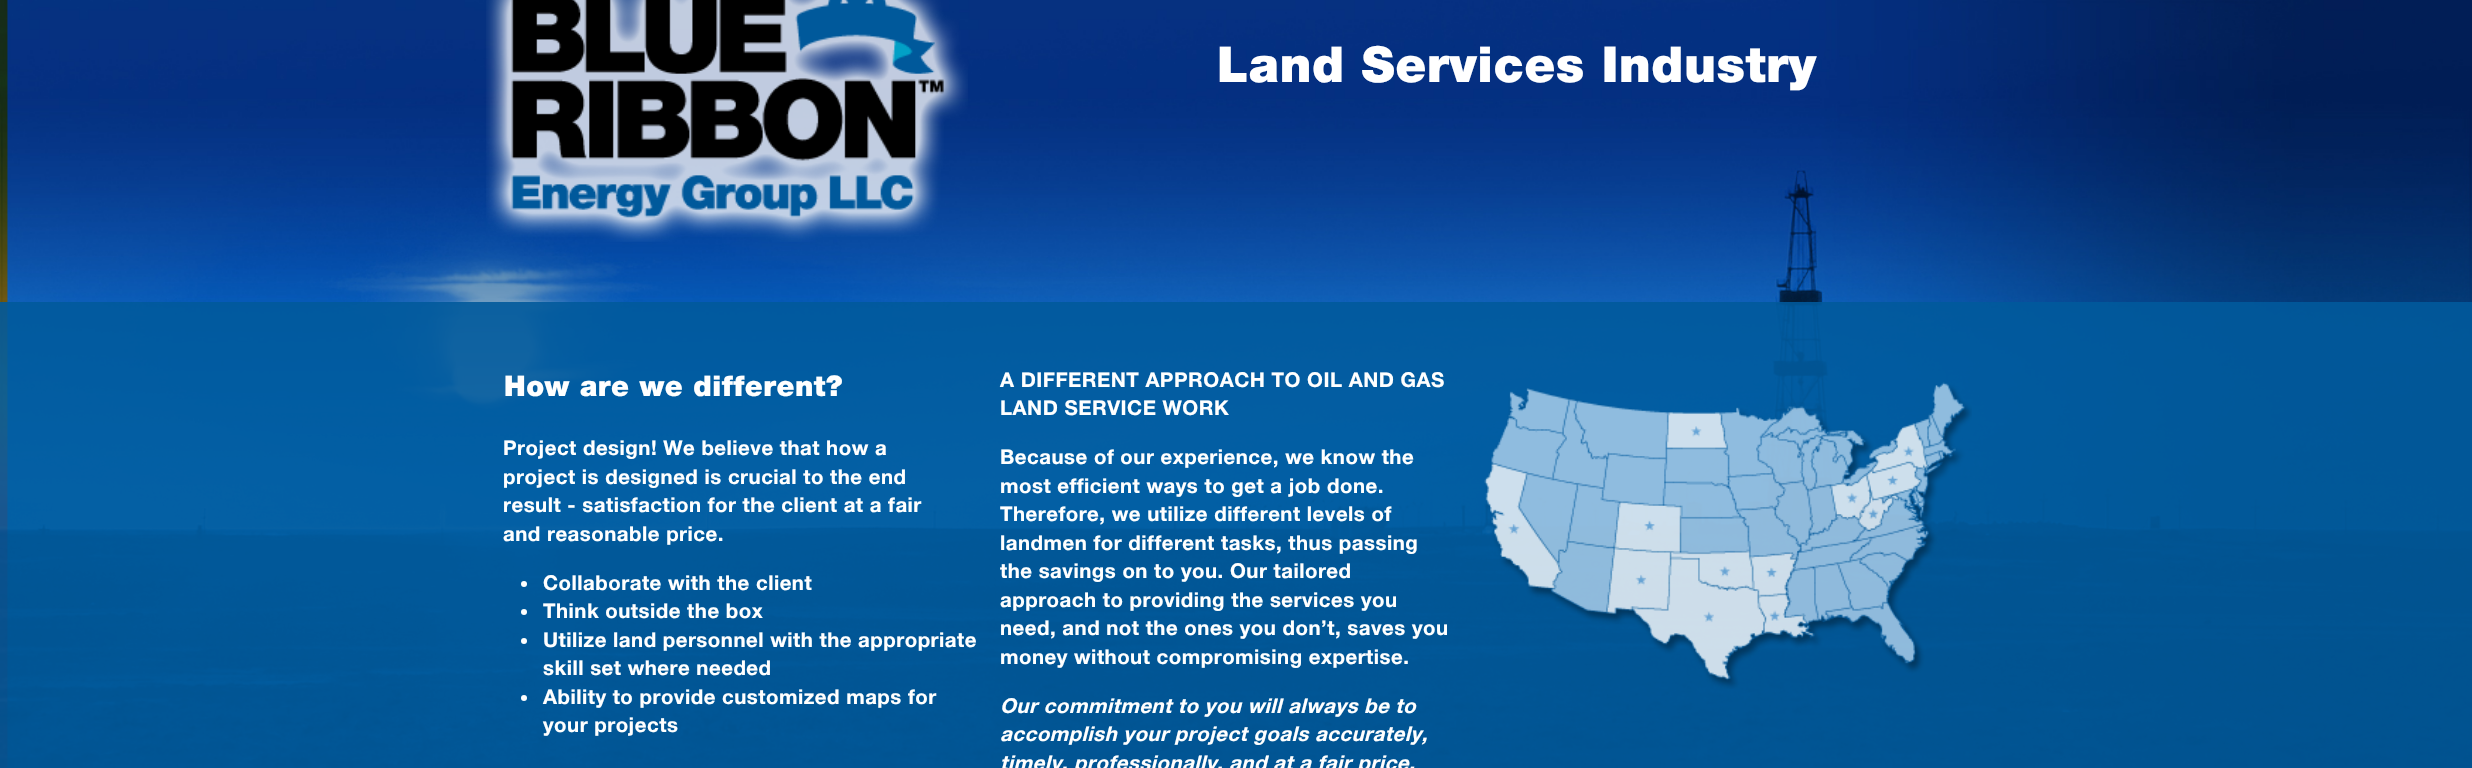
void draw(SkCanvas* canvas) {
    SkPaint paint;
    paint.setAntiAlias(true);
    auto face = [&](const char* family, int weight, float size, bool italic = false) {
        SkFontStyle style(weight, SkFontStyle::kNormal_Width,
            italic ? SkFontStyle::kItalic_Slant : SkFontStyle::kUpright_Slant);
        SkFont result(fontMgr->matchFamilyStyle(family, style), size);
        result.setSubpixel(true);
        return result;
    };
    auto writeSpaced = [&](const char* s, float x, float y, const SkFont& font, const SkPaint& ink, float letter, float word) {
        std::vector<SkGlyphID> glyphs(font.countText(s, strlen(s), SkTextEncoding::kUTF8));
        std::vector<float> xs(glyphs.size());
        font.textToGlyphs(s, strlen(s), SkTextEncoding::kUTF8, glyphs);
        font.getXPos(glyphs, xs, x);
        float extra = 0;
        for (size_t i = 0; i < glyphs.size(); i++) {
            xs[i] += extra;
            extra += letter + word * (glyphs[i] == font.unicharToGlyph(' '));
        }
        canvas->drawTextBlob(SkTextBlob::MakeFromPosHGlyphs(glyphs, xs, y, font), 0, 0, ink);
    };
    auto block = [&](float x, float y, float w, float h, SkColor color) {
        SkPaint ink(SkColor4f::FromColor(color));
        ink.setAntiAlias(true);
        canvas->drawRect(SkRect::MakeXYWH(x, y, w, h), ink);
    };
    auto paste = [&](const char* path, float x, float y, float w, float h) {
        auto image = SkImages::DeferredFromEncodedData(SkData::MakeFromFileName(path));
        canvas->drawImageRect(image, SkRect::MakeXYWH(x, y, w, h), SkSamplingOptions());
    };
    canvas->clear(SkColorSetRGB(7, 30, 74));
    paste("pic1.png", 0, 0, 2472, 768);
    paste("pic2.png", 486, 0, 482, 242);
    auto kFont1 = face("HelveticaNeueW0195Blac", 900, 49.5f);
    paint.setColor(SK_ColorWHITE);
    writeSpaced("Land Services Industry", 1217, 82, kFont1, paint, 0.5f, 0);
    block(0, 302, 2472, 466, SkColorSetARGB(230, 0, 89, 155));
    auto kFont2 = face("HelveticaNeueW0195Blac", 900, 28.5f);
    writeSpaced("How are we different?", 504, 396, kFont2, paint, 0.5f, 0);
    auto kFont3 = face("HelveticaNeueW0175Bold", 700, 20.4f);
    writeSpaced("Project design! We believe that how a", 503, 455, kFont3, paint, 0.5f, 0);
    writeSpaced("project is designed is crucial to the end", 503, 484, kFont3, paint, 0.5f, 0);
    writeSpaced("result - satisfaction for the client at a fair", 503, 512, kFont3, paint, 0.5f, 0);
    writeSpaced("and reasonable price.", 503, 541, kFont3, paint, 0.5f, 0);
    canvas->drawCircle(524, 584, 3, paint);
    writeSpaced("Collaborate with the client", 543, 590, kFont3, paint, 0.5f, 0);
    canvas->drawCircle(524, 612, 3, paint);
    writeSpaced("Think outside the box", 543, 618, kFont3, paint, 0.5f, 0);
    canvas->drawCircle(524, 641, 3, paint);
    writeSpaced("Utilize land personnel with the appropriate", 543, 647, kFont3, paint, 0.5f, 0);
    writeSpaced("skill set where needed", 543, 675, kFont3, paint, 0.5f, 0);
    canvas->drawCircle(524, 698, 3, paint);
    writeSpaced("Ability to provide customized maps for", 543, 704, kFont3, paint, 0.5f, 0);
    writeSpaced("your projects", 543, 732, kFont3, paint, 0.5f, 0);
    writeSpaced("A DIFFERENT APPROACH TO OIL AND GAS", 1000, 387, kFont3, paint, 0.5f, 0);
    writeSpaced("LAND SERVICE WORK", 1000, 415, kFont3, paint, 0.5f, 0);
    writeSpaced("Because of our experience, we know the", 1000, 464, kFont3, paint, 0.5f, 0);
    writeSpaced("most efficient ways to get a job done.", 1000, 493, kFont3, paint, 0.5f, 0);
    writeSpaced("Therefore, we utilize different levels of", 1000, 521, kFont3, paint, 0.5f, 0);
    writeSpaced("landmen for different tasks, thus passing", 1000, 550, kFont3, paint, 0.5f, 0);
    writeSpaced("the savings on to you. Our tailored", 1000, 578, kFont3, paint, 0.5f, 0);
    writeSpaced("approach to providing the services you", 1000, 607, kFont3, paint, 0.5f, 0);
    writeSpaced("need, and not the ones you don’t, saves you", 1000, 635, kFont3, paint, 0.5f, 0);
    writeSpaced("money without compromising expertise.", 1000, 664, kFont3, paint, 0.5f, 0);
    auto kFont4 = face("HelveticaNeueW0175Bold", 700, 20.4f, true);
    writeSpaced("Our commitment to you will always be to", 1000, 713, kFont4, paint, 0.5f, 0);
    writeSpaced("accomplish your project goals accurately,", 1000, 741, kFont4, paint, 0.5f, 0);
    writeSpaced("timely, professionally, and at a fair price.", 1000, 770, kFont4, paint, 0.5f, 0);
    paste("pic3.png", 1484, 382, 488, 307);
}
